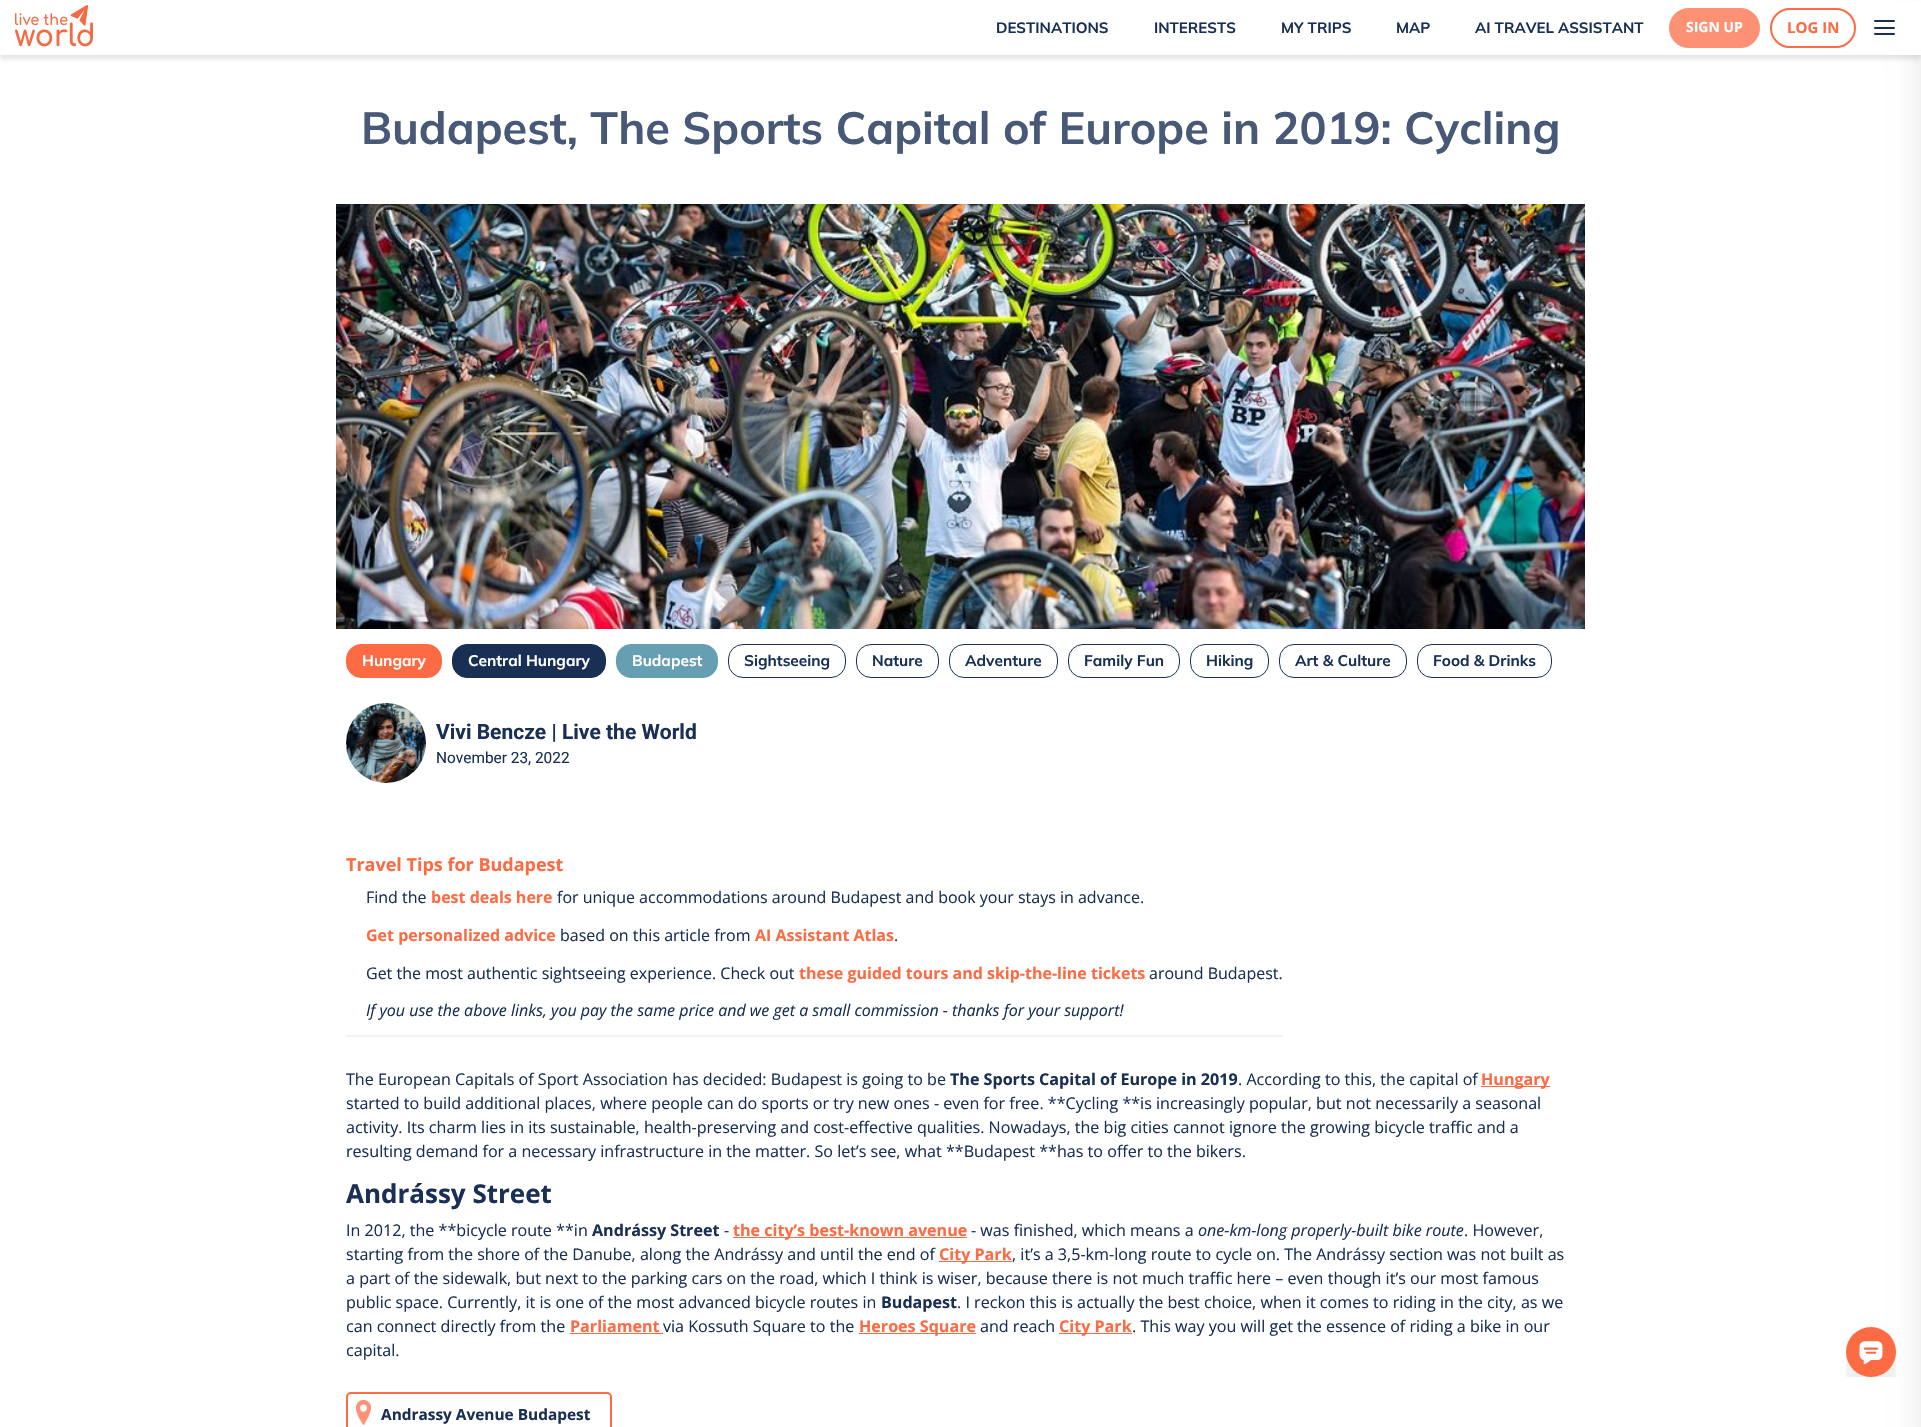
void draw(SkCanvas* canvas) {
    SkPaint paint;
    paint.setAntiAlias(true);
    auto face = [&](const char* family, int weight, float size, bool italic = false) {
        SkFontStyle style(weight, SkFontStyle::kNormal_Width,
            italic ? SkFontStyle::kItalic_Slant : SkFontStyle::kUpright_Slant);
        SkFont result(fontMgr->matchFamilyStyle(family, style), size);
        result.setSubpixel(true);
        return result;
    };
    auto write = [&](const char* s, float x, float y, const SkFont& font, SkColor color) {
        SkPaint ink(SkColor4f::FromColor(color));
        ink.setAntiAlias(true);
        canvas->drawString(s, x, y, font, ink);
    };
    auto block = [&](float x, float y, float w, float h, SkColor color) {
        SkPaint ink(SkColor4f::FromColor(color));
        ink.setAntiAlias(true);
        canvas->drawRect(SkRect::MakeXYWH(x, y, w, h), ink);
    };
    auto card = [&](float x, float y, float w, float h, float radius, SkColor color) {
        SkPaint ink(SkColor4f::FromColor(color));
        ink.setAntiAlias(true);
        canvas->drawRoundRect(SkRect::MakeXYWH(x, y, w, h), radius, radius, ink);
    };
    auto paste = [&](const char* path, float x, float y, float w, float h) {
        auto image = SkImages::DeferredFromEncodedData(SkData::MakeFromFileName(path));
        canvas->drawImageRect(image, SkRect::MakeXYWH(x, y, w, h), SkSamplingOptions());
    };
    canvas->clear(SK_ColorWHITE);
    paint.setColor(SkColorSetARGB(26, 0, 0, 0));
    paint.setMaskFilter(SkMaskFilter::MakeBlur(kNormal_SkBlurStyle, 2));
    canvas->drawRect(SkRect::MakeXYWH(0, 4, 1921, 55), paint);
    paint.setMaskFilter(nullptr);
    paint.setMaskFilter(SkMaskFilter::MakeBlur(kNormal_SkBlurStyle, 15));
    canvas->drawRect(SkRect::MakeXYWH(1921, 20, 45, 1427), paint);
    paint.setMaskFilter(nullptr);
    block(0, 1, 1921, 54, SK_ColorWHITE);
    paste("pic1.png", 15, 5, 78, 42);
    auto kFont1 = face("Mulish", 700, 15);
    write("DESTINATIONS", 996, 33, kFont1, SkColorSetRGB(25, 47, 84));
    write("INTERESTS", 1154, 33, kFont1, SkColorSetRGB(25, 47, 84));
    write("MY TRIPS", 1281, 33, kFont1, SkColorSetRGB(25, 47, 84));
    write("MAP", 1396, 33, kFont1, SkColorSetRGB(25, 47, 84));
    write("AI TRAVEL ASSISTANT", 1475, 33, kFont1, SkColorSetRGB(25, 47, 84));
    paint.setColor(SkColorSetRGB(253, 145, 115));
    canvas->drawRoundRect(SkRect::MakeXYWH(1670, 9, 89, 38), 19, 19, paint);
    paint.setStyle(SkPaint::kStroke_Style);
    paint.setStrokeWidth(2);
    canvas->drawRoundRect(SkRect::MakeXYWH(1670, 9, 89, 38), 19, 19, paint);
    auto kFont2 = face("Open Sans", 700, 14);
    write("SIGN UP", 1686, 32, kFont2, SK_ColorWHITE);
    paint.setColor(SkColorSetRGB(252, 107, 67));
    canvas->drawRoundRect(SkRect::MakeXYWH(1771, 9, 84, 38), 19, 19, paint);
    auto kFont3 = face("Open Sans", 700, 15);
    write("LOG IN", 1787, 33, kFont3, SkColorSetRGB(252, 107, 67));
    card(1874, 20, 21, 2, 1, SkColorSetRGB(25, 47, 84));
    card(1874, 27, 21, 2, 1, SkColorSetRGB(25, 47, 84));
    card(1874, 33, 21, 2, 1, SkColorSetRGB(25, 47, 84));
    auto kFont4 = face("Mulish", 700, 45);
    write("Budapest, The Sports Capital of Europe in 2019: Cycling", 361, 144, kFont4, SkColorSetRGB(71, 89, 118));
    paste("pic2.png", 336, 204, 1249, 425);
    paint.setStyle(SkPaint::kFill_Style);
    canvas->drawRoundRect(SkRect::MakeXYWH(346.5f, 644.5f, 95, 33), 14.5f, 14.5f, paint);
    paint.setStyle(SkPaint::kStroke_Style);
    paint.setStrokeWidth(1);
    canvas->drawRoundRect(SkRect::MakeXYWH(346.5f, 644.5f, 95, 33), 14.5f, 14.5f, paint);
    auto kFont5 = face("Mulish", 700, 15.4f);
    write("Hungary", 362, 666, kFont5, SK_ColorWHITE);
    paint.setStyle(SkPaint::kFill_Style);
    paint.setColor(SkColorSetRGB(25, 47, 84));
    canvas->drawRoundRect(SkRect::MakeXYWH(452.5f, 644.5f, 153, 33), 14.5f, 14.5f, paint);
    paint.setStyle(SkPaint::kStroke_Style);
    canvas->drawRoundRect(SkRect::MakeXYWH(452.5f, 644.5f, 153, 33), 14.5f, 14.5f, paint);
    write("Central Hungary", 468, 666, kFont5, SK_ColorWHITE);
    paint.setStyle(SkPaint::kFill_Style);
    paint.setColor(SkColorSetRGB(102, 159, 178));
    canvas->drawRoundRect(SkRect::MakeXYWH(616.5f, 644.5f, 101, 33), 14.5f, 14.5f, paint);
    paint.setStyle(SkPaint::kStroke_Style);
    canvas->drawRoundRect(SkRect::MakeXYWH(616.5f, 644.5f, 101, 33), 14.5f, 14.5f, paint);
    write("Budapest", 632, 666, kFont5, SK_ColorWHITE);
    paint.setColor(SkColorSetRGB(25, 47, 84));
    canvas->drawRoundRect(SkRect::MakeXYWH(728.5f, 644.5f, 117, 33), 14.5f, 14.5f, paint);
    write("Sightseeing", 744, 666, kFont5, SkColorSetRGB(25, 47, 84));
    canvas->drawRoundRect(SkRect::MakeXYWH(856.5f, 644.5f, 82, 33), 14.5f, 14.5f, paint);
    write("Nature", 872, 666, kFont5, SkColorSetRGB(25, 47, 84));
    canvas->drawRoundRect(SkRect::MakeXYWH(949.5f, 644.5f, 108, 33), 14.5f, 14.5f, paint);
    write("Adventure", 965, 666, kFont5, SkColorSetRGB(25, 47, 84));
    canvas->drawRoundRect(SkRect::MakeXYWH(1068.5f, 644.5f, 111, 33), 14.5f, 14.5f, paint);
    write("Family Fun", 1084, 666, kFont5, SkColorSetRGB(25, 47, 84));
    canvas->drawRoundRect(SkRect::MakeXYWH(1190.5f, 644.5f, 78, 33), 14.5f, 14.5f, paint);
    write("Hiking", 1206, 666, kFont5, SkColorSetRGB(25, 47, 84));
    canvas->drawRoundRect(SkRect::MakeXYWH(1279.5f, 644.5f, 127, 33), 14.5f, 14.5f, paint);
    write("Art & Culture", 1295, 666, kFont5, SkColorSetRGB(25, 47, 84));
    canvas->drawRoundRect(SkRect::MakeXYWH(1417.5f, 644.5f, 134, 33), 14.5f, 14.5f, paint);
    write("Food & Drinks", 1433, 666, kFont5, SkColorSetRGB(25, 47, 84));
    paste("pic3.png", 346, 703, 80, 80);
    auto kFont6 = face("Roboto", 700, 21);
    write("Vivi Bencze | Live the World", 436, 739, kFont6, SkColorSetRGB(25, 47, 84));
    auto kFont7 = face("Roboto", 400, 15.4f);
    write("November 23, 2022", 436, 763, kFont7, SkColorSetRGB(25, 47, 84));
    auto kFont8 = face("Open Sans", 700, 18);
    write("Travel Tips for Budapest", 346, 871, kFont8, SkColorSetRGB(252, 107, 67));
    auto kFont9 = face("Open Sans", 400, 16);
    write("Find the", 366, 903, kFont9, SkColorSetRGB(25, 47, 84));
    auto kFont10 = face("Open Sans", 700, 16);
    write("best deals here", 431, 903, kFont10, SkColorSetRGB(252, 107, 67));
    write("for unique accommodations around Budapest and book your stays in advance.", 557, 903, kFont9, SkColorSetRGB(25, 47, 84));
    write("Get personalized advice", 366, 941, kFont10, SkColorSetRGB(252, 107, 67));
    write("based on this article from", 560, 941, kFont9, SkColorSetRGB(25, 47, 84));
    write("AI Assistant Atlas", 755, 941, kFont10, SkColorSetRGB(252, 107, 67));
    write(".", 894, 941, kFont9, SkColorSetRGB(25, 47, 84));
    write("Get the most authentic sightseeing experience. Check out", 366, 979, kFont9, SkColorSetRGB(25, 47, 84));
    write("these guided tours and skip-the-line tickets", 799, 979, kFont10, SkColorSetRGB(252, 107, 67));
    write("around Budapest.", 1149, 979, kFont9, SkColorSetRGB(25, 47, 84));
    auto kFont11 = face("Open Sans", 400, 16, true);
    write("If you use the above links, you pay the same price and we get a small commission - thanks for your support!", 366, 1016, kFont11, SkColorSetRGB(25, 47, 84));
    block(346, 1035, 937, 2, SkColorSetRGB(243, 244, 247));
    auto kFont12 = face("Open Sans", 400, 16.1f);
    write("The European Capitals of Sport Association has decided: Budapest is going to be", 346, 1085, kFont12, SkColorSetRGB(25, 47, 84));
    auto kFont13 = face("Open Sans", 700, 16.1f);
    write("The Sports Capital of Europe in 2019", 950, 1085, kFont13, SkColorSetRGB(25, 47, 84));
    write(". According to this, the capital of", 1238, 1085, kFont12, SkColorSetRGB(25, 47, 84));
    block(1481, 1086, 69, 1, SkColorSetRGB(252, 107, 67));
    write("Hungary", 1481, 1085, kFont13, SkColorSetRGB(252, 107, 67));
    write("started to build additional places, where people can do sports or try new ones - even for free. **Cycling **is increasingly popular, but not necessarily a seasonal", 346, 1109, kFont12, SkColorSetRGB(25, 47, 84));
    write("activity. Its charm lies in its sustainable, health-preserving and cost-effective qualities. Nowadays, the big cities cannot ignore the growing bicycle traffic and a", 346, 1133, kFont12, SkColorSetRGB(25, 47, 84));
    write("resulting demand for a necessary infrastructure in the matter. So let’s see, what **Budapest **has to offer to the bikers.", 346, 1157, kFont12, SkColorSetRGB(25, 47, 84));
    auto kFont14 = face("Open Sans", 700, 26);
    write("Andrássy Street", 346, 1203, kFont14, SkColorSetRGB(25, 47, 84));
    write("In 2012, the **bicycle route **in", 346, 1236, kFont12, SkColorSetRGB(25, 47, 84));
    write("Andrássy Street", 592, 1236, kFont13, SkColorSetRGB(25, 47, 84));
    write("-", 724, 1236, kFont12, SkColorSetRGB(25, 47, 84));
    block(733, 1237, 234, 1, SkColorSetRGB(252, 107, 67));
    write("the city’s best-known avenue", 733, 1236, kFont13, SkColorSetRGB(252, 107, 67));
    write("- was finished, which means a", 971, 1236, kFont12, SkColorSetRGB(25, 47, 84));
    auto kFont15 = face("Open Sans", 400, 16.1f, true);
    write("one-km-long properly-built bike route", 1198, 1236, kFont15, SkColorSetRGB(25, 47, 84));
    write(". However,", 1464, 1236, kFont12, SkColorSetRGB(25, 47, 84));
    write("starting from the shore of the Danube, along the Andrássy and until the end of", 346, 1260, kFont12, SkColorSetRGB(25, 47, 84));
    block(939, 1261, 73, 1, SkColorSetRGB(252, 107, 67));
    write("City Park", 939, 1260, kFont13, SkColorSetRGB(252, 107, 67));
    write(", it’s a 3,5-km-long route to cycle on. The Andrássy section was not built as", 1012, 1260, kFont12, SkColorSetRGB(25, 47, 84));
    write("a part of the sidewalk, but next to the parking cars on the road, which I think is wiser, because there is not much traffic here – even though it’s our most famous", 346, 1284, kFont12, SkColorSetRGB(25, 47, 84));
    write("public space. Currently, it is one of the most advanced bicycle routes in", 346, 1308, kFont12, SkColorSetRGB(25, 47, 84));
    write("Budapest", 881, 1308, kFont13, SkColorSetRGB(25, 47, 84));
    write(". I reckon this is actually the best choice, when it comes to riding in the city, as we", 957, 1308, kFont12, SkColorSetRGB(25, 47, 84));
    write("can connect directly from the", 346, 1332, kFont12, SkColorSetRGB(25, 47, 84));
    write("Parliament", 570, 1332, kFont13, SkColorSetRGB(252, 107, 67));
    block(570, 1333, 93, 1, SkColorSetRGB(252, 107, 67));
    write("via Kossuth Square to the", 663, 1332, kFont12, SkColorSetRGB(25, 47, 84));
    block(859, 1333, 117, 1, SkColorSetRGB(252, 107, 67));
    write("Heroes Square", 859, 1332, kFont13, SkColorSetRGB(252, 107, 67));
    write("and reach", 980, 1332, kFont12, SkColorSetRGB(25, 47, 84));
    block(1059, 1333, 73, 1, SkColorSetRGB(252, 107, 67));
    write("City Park", 1059, 1332, kFont13, SkColorSetRGB(252, 107, 67));
    write(". This way you will get the essence of riding a bike in our", 1132, 1332, kFont12, SkColorSetRGB(25, 47, 84));
    write("capital.", 346, 1356, kFont12, SkColorSetRGB(25, 47, 84));
    paint.setStrokeWidth(2);
    paint.setColor(SkColorSetRGB(252, 107, 67));
    canvas->drawRoundRect(SkRect::MakeXYWH(347, 1393, 264, 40), 4, 4, paint);
    paste("pic4.png", 356, 1400, 15, 25);
    auto kFont16 = face("Open Sans", 700, 15.4f);
    write("Andrassy Avenue Budapest", 381, 1420, kFont16, SkColorSetRGB(25, 47, 84));
    paste("pic5.png", 1846, 1327, 50, 50);
}
